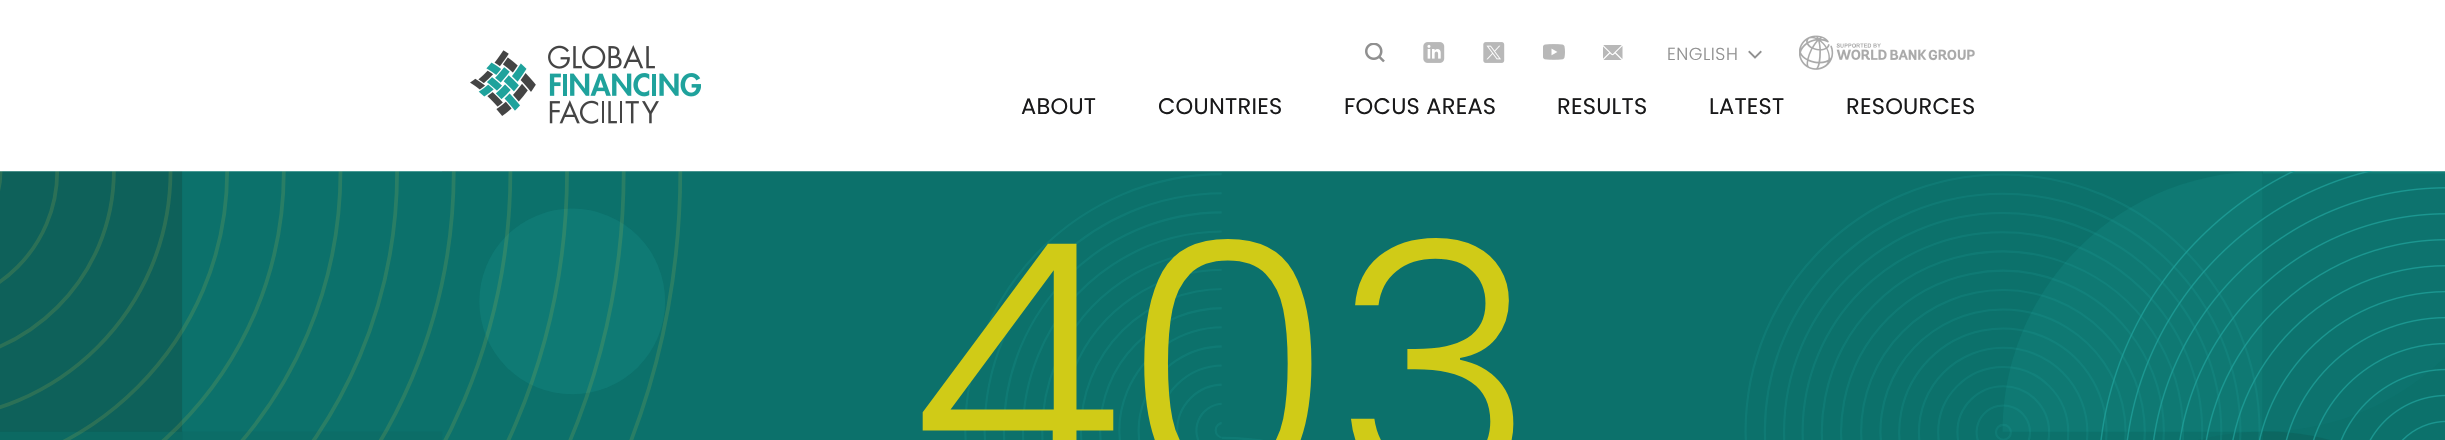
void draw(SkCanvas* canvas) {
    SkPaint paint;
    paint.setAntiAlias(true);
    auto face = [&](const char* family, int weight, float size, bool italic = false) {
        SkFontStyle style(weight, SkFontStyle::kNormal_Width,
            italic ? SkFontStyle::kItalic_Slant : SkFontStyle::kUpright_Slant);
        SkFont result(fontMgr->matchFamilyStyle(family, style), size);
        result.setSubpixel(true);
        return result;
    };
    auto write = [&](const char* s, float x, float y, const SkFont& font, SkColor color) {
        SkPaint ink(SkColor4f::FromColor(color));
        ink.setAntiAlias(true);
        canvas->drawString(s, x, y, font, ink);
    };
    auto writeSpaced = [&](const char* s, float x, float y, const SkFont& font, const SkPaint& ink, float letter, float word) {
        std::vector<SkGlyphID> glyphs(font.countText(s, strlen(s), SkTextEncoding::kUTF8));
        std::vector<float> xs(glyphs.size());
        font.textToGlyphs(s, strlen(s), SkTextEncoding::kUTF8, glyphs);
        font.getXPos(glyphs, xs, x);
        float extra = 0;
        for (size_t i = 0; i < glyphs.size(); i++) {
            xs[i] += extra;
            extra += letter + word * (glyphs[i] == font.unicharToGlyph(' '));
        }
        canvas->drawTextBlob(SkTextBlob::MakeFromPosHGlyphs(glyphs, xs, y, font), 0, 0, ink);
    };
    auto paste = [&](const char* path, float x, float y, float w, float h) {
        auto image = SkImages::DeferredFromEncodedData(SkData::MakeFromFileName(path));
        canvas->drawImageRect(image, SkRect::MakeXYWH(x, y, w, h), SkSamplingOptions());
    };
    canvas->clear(SK_ColorWHITE);
    paste("pic1.png", 470, 45, 231, 79);
    paste("pic2.png", 1365, 43, 20, 20);
    paste("pic3.png", 1423, 42, 22, 21);
    paste("pic4.png", 1483, 42, 22, 21);
    paste("pic5.png", 1543, 44, 22, 16);
    paste("pic6.png", 1603, 45, 20, 15);
    auto kFont1 = face("Poppins", 300, 17.5f);
    paint.setColor(SkColorSetRGB(144, 144, 144));
    writeSpaced("ENGLISH", 1667, 60, kFont1, paint, 0.5f, 0);
    paste("pic7.png", 1748, 50, 14, 9);
    paste("pic8.png", 1799, 35, 176, 35);
    auto kFont2 = face("Poppins", 400, 22.5f);
    paint.setColor(SkColorSetRGB(25, 25, 26));
    writeSpaced("ABOUT", 1021, 114, kFont2, paint, 0.25f, 0);
    writeSpaced("COUNTRIES", 1158, 114, kFont2, paint, 0.25f, 0);
    writeSpaced("FOCUS AREAS", 1344, 114, kFont2, paint, 0.25f, 0);
    writeSpaced("RESULTS", 1557, 114, kFont2, paint, 0.25f, 0);
    writeSpaced("LATEST", 1709, 114, kFont2, paint, 0.25f, 0);
    writeSpaced("RESOURCES", 1846, 114, kFont2, paint, 0.25f, 0);
    paste("pic9.png", 0, 171, 2445, 269);
    auto kFont3 = face("Poppins", 300, 344);
    write("403", 911, 489, kFont3, SkColorSetRGB(208, 203, 23));
    paste("pic10.png", 2100, 171, 345, 269);
}
